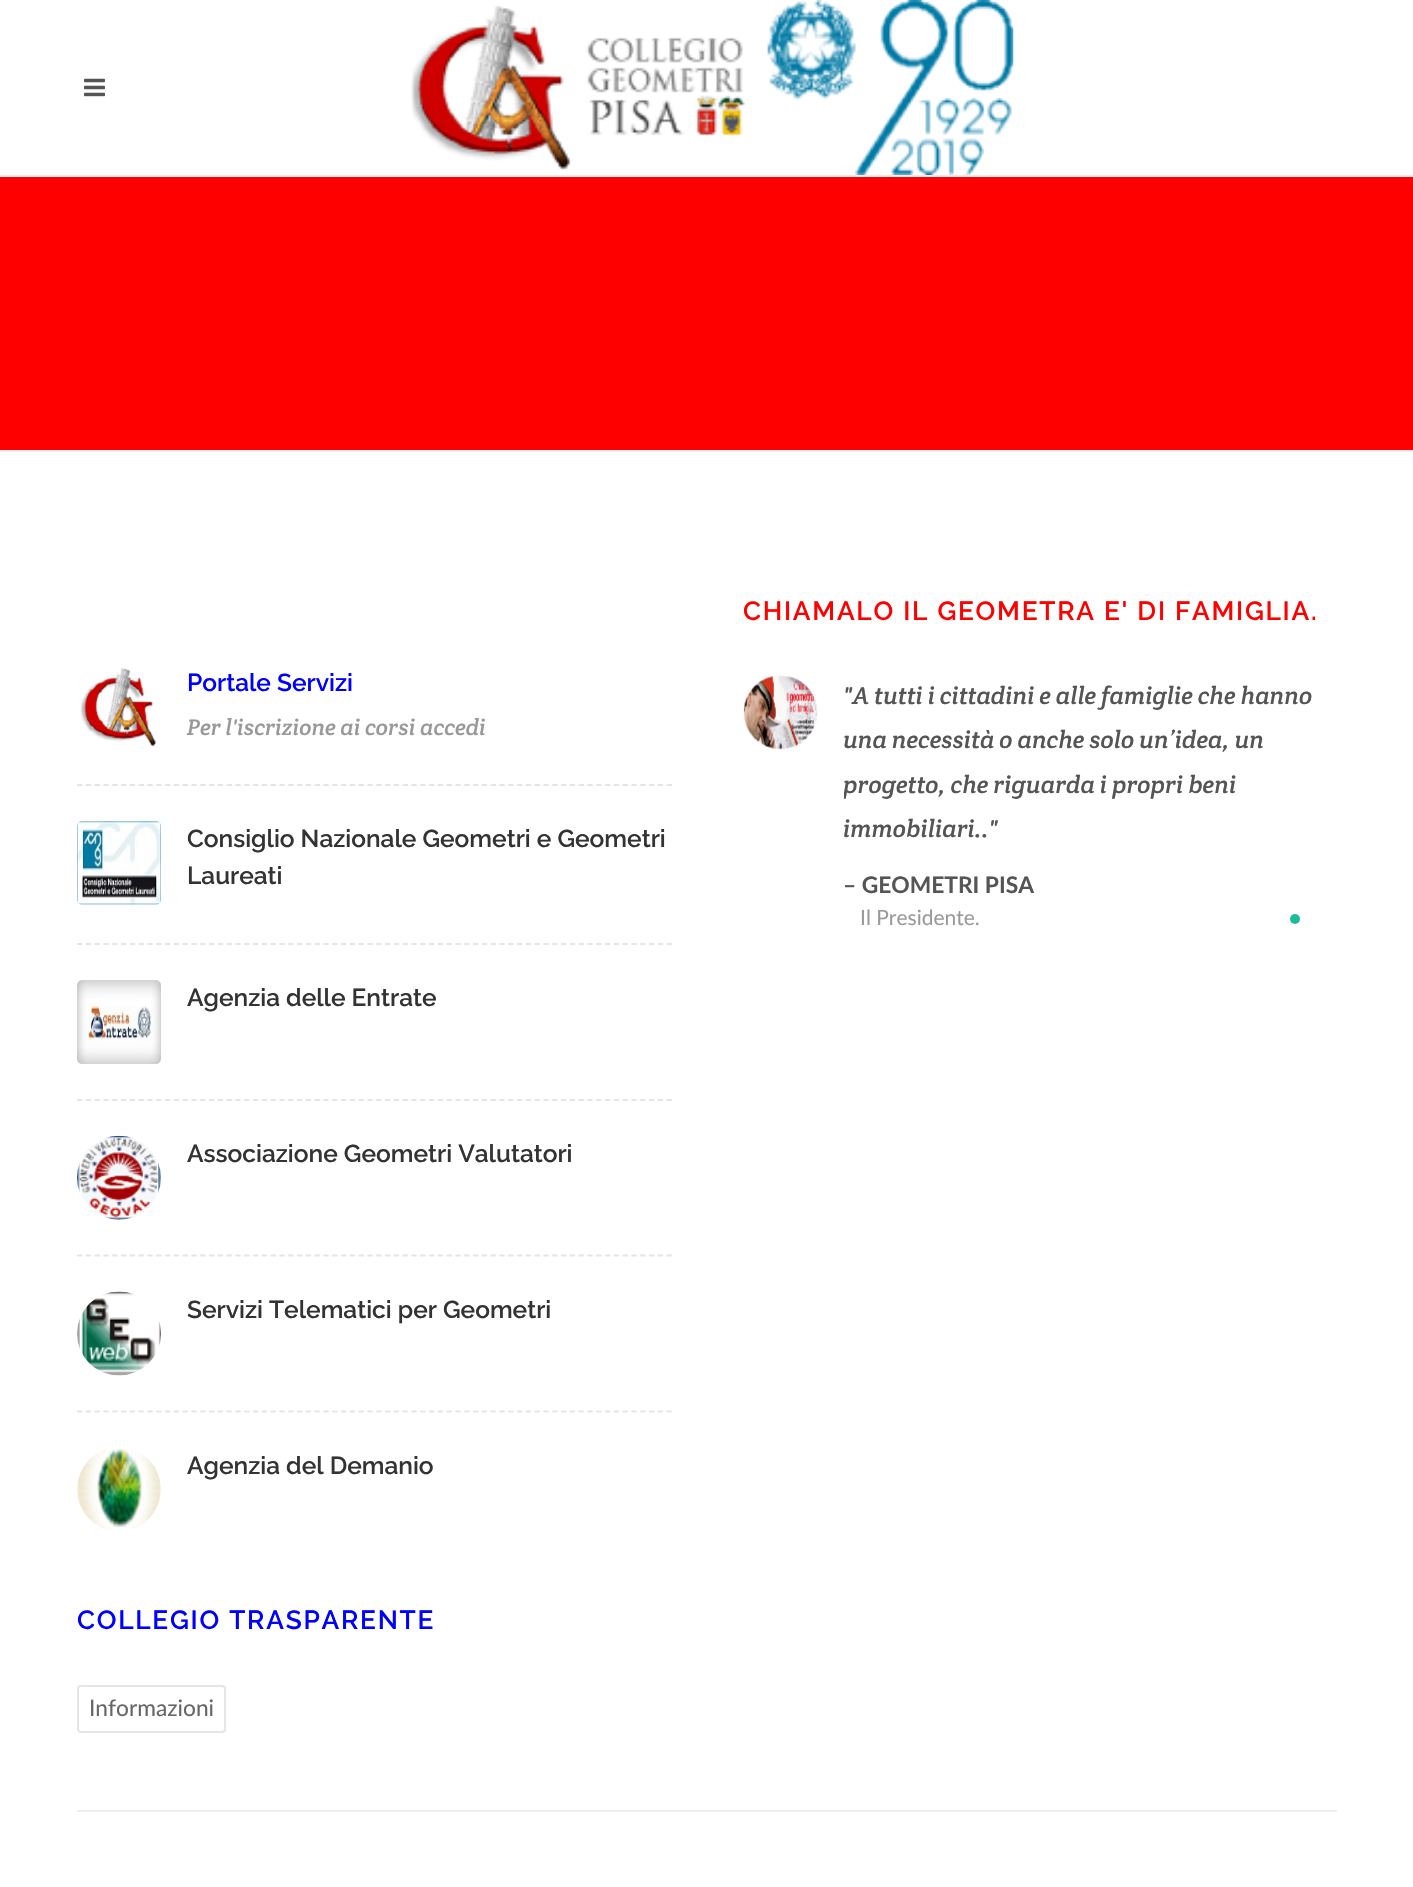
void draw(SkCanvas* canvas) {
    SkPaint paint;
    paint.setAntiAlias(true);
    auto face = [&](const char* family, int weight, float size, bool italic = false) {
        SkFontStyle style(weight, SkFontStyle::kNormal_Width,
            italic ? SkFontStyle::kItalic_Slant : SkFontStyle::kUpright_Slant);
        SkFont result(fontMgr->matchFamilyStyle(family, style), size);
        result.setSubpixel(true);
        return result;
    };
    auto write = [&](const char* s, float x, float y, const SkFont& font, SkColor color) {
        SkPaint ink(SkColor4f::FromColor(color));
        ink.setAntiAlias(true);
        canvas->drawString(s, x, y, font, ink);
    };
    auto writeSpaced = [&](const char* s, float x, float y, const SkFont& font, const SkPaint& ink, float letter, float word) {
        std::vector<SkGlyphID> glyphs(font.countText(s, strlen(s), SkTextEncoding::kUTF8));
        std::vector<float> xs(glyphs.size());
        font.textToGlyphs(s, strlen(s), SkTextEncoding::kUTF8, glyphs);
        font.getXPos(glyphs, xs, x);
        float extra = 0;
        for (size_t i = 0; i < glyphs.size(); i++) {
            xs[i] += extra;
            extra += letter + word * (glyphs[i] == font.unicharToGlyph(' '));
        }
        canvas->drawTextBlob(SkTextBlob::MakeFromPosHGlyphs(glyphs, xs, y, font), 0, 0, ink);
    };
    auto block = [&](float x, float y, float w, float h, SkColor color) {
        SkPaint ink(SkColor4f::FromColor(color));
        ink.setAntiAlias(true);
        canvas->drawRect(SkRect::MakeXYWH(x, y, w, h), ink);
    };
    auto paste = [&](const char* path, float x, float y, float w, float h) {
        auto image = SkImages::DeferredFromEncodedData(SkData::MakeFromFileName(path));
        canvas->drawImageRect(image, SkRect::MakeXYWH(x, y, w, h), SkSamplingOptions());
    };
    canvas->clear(SK_ColorWHITE);
    block(0, 175, 1413, 2, SkColorSetRGB(238, 238, 238));
    paste("pic1.png", 84, 78, 21, 19);
    paste("pic2.png", 411, 0, 603, 175);
    block(0, 177, 1413, 273, SkColorSetRGB(255, 0, 0));
    block(0, 450, 1413, 2, SkColorSetRGB(238, 238, 238));
    block(77, 1810, 1260, 2, SkColorSetRGB(238, 238, 238));
    paste("pic3.png", 80, 667, 77, 80);
    auto kFont1 = face("Raleway", 600, 24.5f);
    write("Portale Servizi", 187, 691, kFont1, SkColorSetRGB(0, 0, 255));
    auto kFont2 = face("Crete Round", 400, 22.75f, true);
    write("Per l'iscrizione ai corsi accedi", 187, 735, kFont2, SkColorSetRGB(153, 153, 153));
    paint.setStyle(SkPaint::kStroke_Style);
    paint.setStrokeWidth(1.8f);
    paint.setColor(SkColorSetRGB(229, 229, 229));
    paint.setPathEffect(SkDashPathEffect::Make({{5.25f, 3.55f}}, 0));
    canvas->drawPath(SkPathBuilder().moveTo(77, 785).lineTo(672, 785).detach(), paint);
    paint.setPathEffect(nullptr);
    paste("pic4.png", 77, 820, 84, 85);
    write("Consiglio Nazionale Geometri e Geometri", 187, 847, kFont1, SkColorSetRGB(51, 51, 51));
    write("Laureati", 187, 884, kFont1, SkColorSetRGB(51, 51, 51));
    paint.setPathEffect(SkDashPathEffect::Make({{5.25f, 3.55f}}, 0));
    canvas->drawPath(SkPathBuilder().moveTo(77, 944).lineTo(672, 944).detach(), paint);
    paint.setPathEffect(nullptr);
    paste("pic5.png", 77, 980, 84, 84);
    write("Agenzia delle Entrate", 187, 1006, kFont1, SkColorSetRGB(51, 51, 51));
    paint.setPathEffect(SkDashPathEffect::Make({{5.25f, 3.55f}}, 0));
    canvas->drawPath(SkPathBuilder().moveTo(77, 1100).lineTo(672, 1100).detach(), paint);
    paint.setPathEffect(nullptr);
    paste("pic6.png", 77, 1135, 84, 85);
    write("Associazione Geometri Valutatori", 187, 1162, kFont1, SkColorSetRGB(51, 51, 51));
    paint.setPathEffect(SkDashPathEffect::Make({{5.25f, 3.55f}}, 0));
    canvas->drawPath(SkPathBuilder().moveTo(77, 1255.5f).lineTo(672, 1255.5f).detach(), paint);
    paint.setPathEffect(nullptr);
    paste("pic7.png", 77, 1291, 84, 85);
    write("Servizi Telematici per Geometri", 187, 1318, kFont1, SkColorSetRGB(51, 51, 51));
    paint.setPathEffect(SkDashPathEffect::Make({{5.25f, 3.55f}}, 0));
    canvas->drawPath(SkPathBuilder().moveTo(77, 1411.5f).lineTo(672, 1411.5f).detach(), paint);
    paint.setPathEffect(nullptr);
    paste("pic8.png", 77, 1449, 84, 80);
    write("Agenzia del Demanio", 187, 1474, kFont1, SkColorSetRGB(51, 51, 51));
    auto kFont3 = face("Raleway", 600, 26.25f);
    paint.setStyle(SkPaint::kFill_Style);
    paint.setColor(SkColorSetRGB(255, 0, 0));
    writeSpaced("CHIAMALO IL GEOMETRA E' DI FAMIGLIA.", 743, 620, kFont3, paint, 1.75f, 0);
    paste("pic9.png", 743, 675, 75, 75);
    auto kFont4 = face("Crete Round", 400, 24.5f, true);
    write("\"A tutti i cittadini e alle famiglie che hanno", 843, 704, kFont4, SkColorSetRGB(85, 85, 85));
    write("una necessità o anche solo un’idea, un", 843, 748, kFont4, SkColorSetRGB(85, 85, 85));
    canvas->save();
    canvas->clipRect(SkRect::MakeXYWH(844, 676, 495, 259));
    write("progetto, che riguarda i propri beni", 843, 793, kFont4, SkColorSetRGB(85, 85, 85));
    canvas->restore();
    write("immobiliari..\"", 843, 837, kFont4, SkColorSetRGB(85, 85, 85));
    auto kFont5 = face("Lato", 700, 22.75f);
    write("– GEOMETRI PISA", 843, 893, kFont5, SkColorSetRGB(85, 85, 85));
    auto kFont6 = face("Lato", 400, 21);
    write("Il Presidente.", 860, 925, kFont6, SkColorSetRGB(153, 153, 153));
    paint.setColor(SkColorSetRGB(26, 188, 156));
    canvas->drawCircle(1295, 919, 5, paint);
    paint.setColor(SkColorSetRGB(0, 0, 255));
    writeSpaced("COLLEGIO TRASPARENTE", 77, 1629, kFont3, paint, 1.75f, 0);
    paint.setStyle(SkPaint::kStroke_Style);
    paint.setStrokeWidth(2);
    paint.setColor(SkColorSetRGB(229, 229, 229));
    canvas->drawRoundRect(SkRect::MakeXYWH(78, 1686, 147, 46), 3, 3, paint);
    auto kFont7 = face("Lato", 400, 22.75f);
    write("Informazioni", 89, 1716, kFont7, SkColorSetRGB(102, 102, 102));
}
